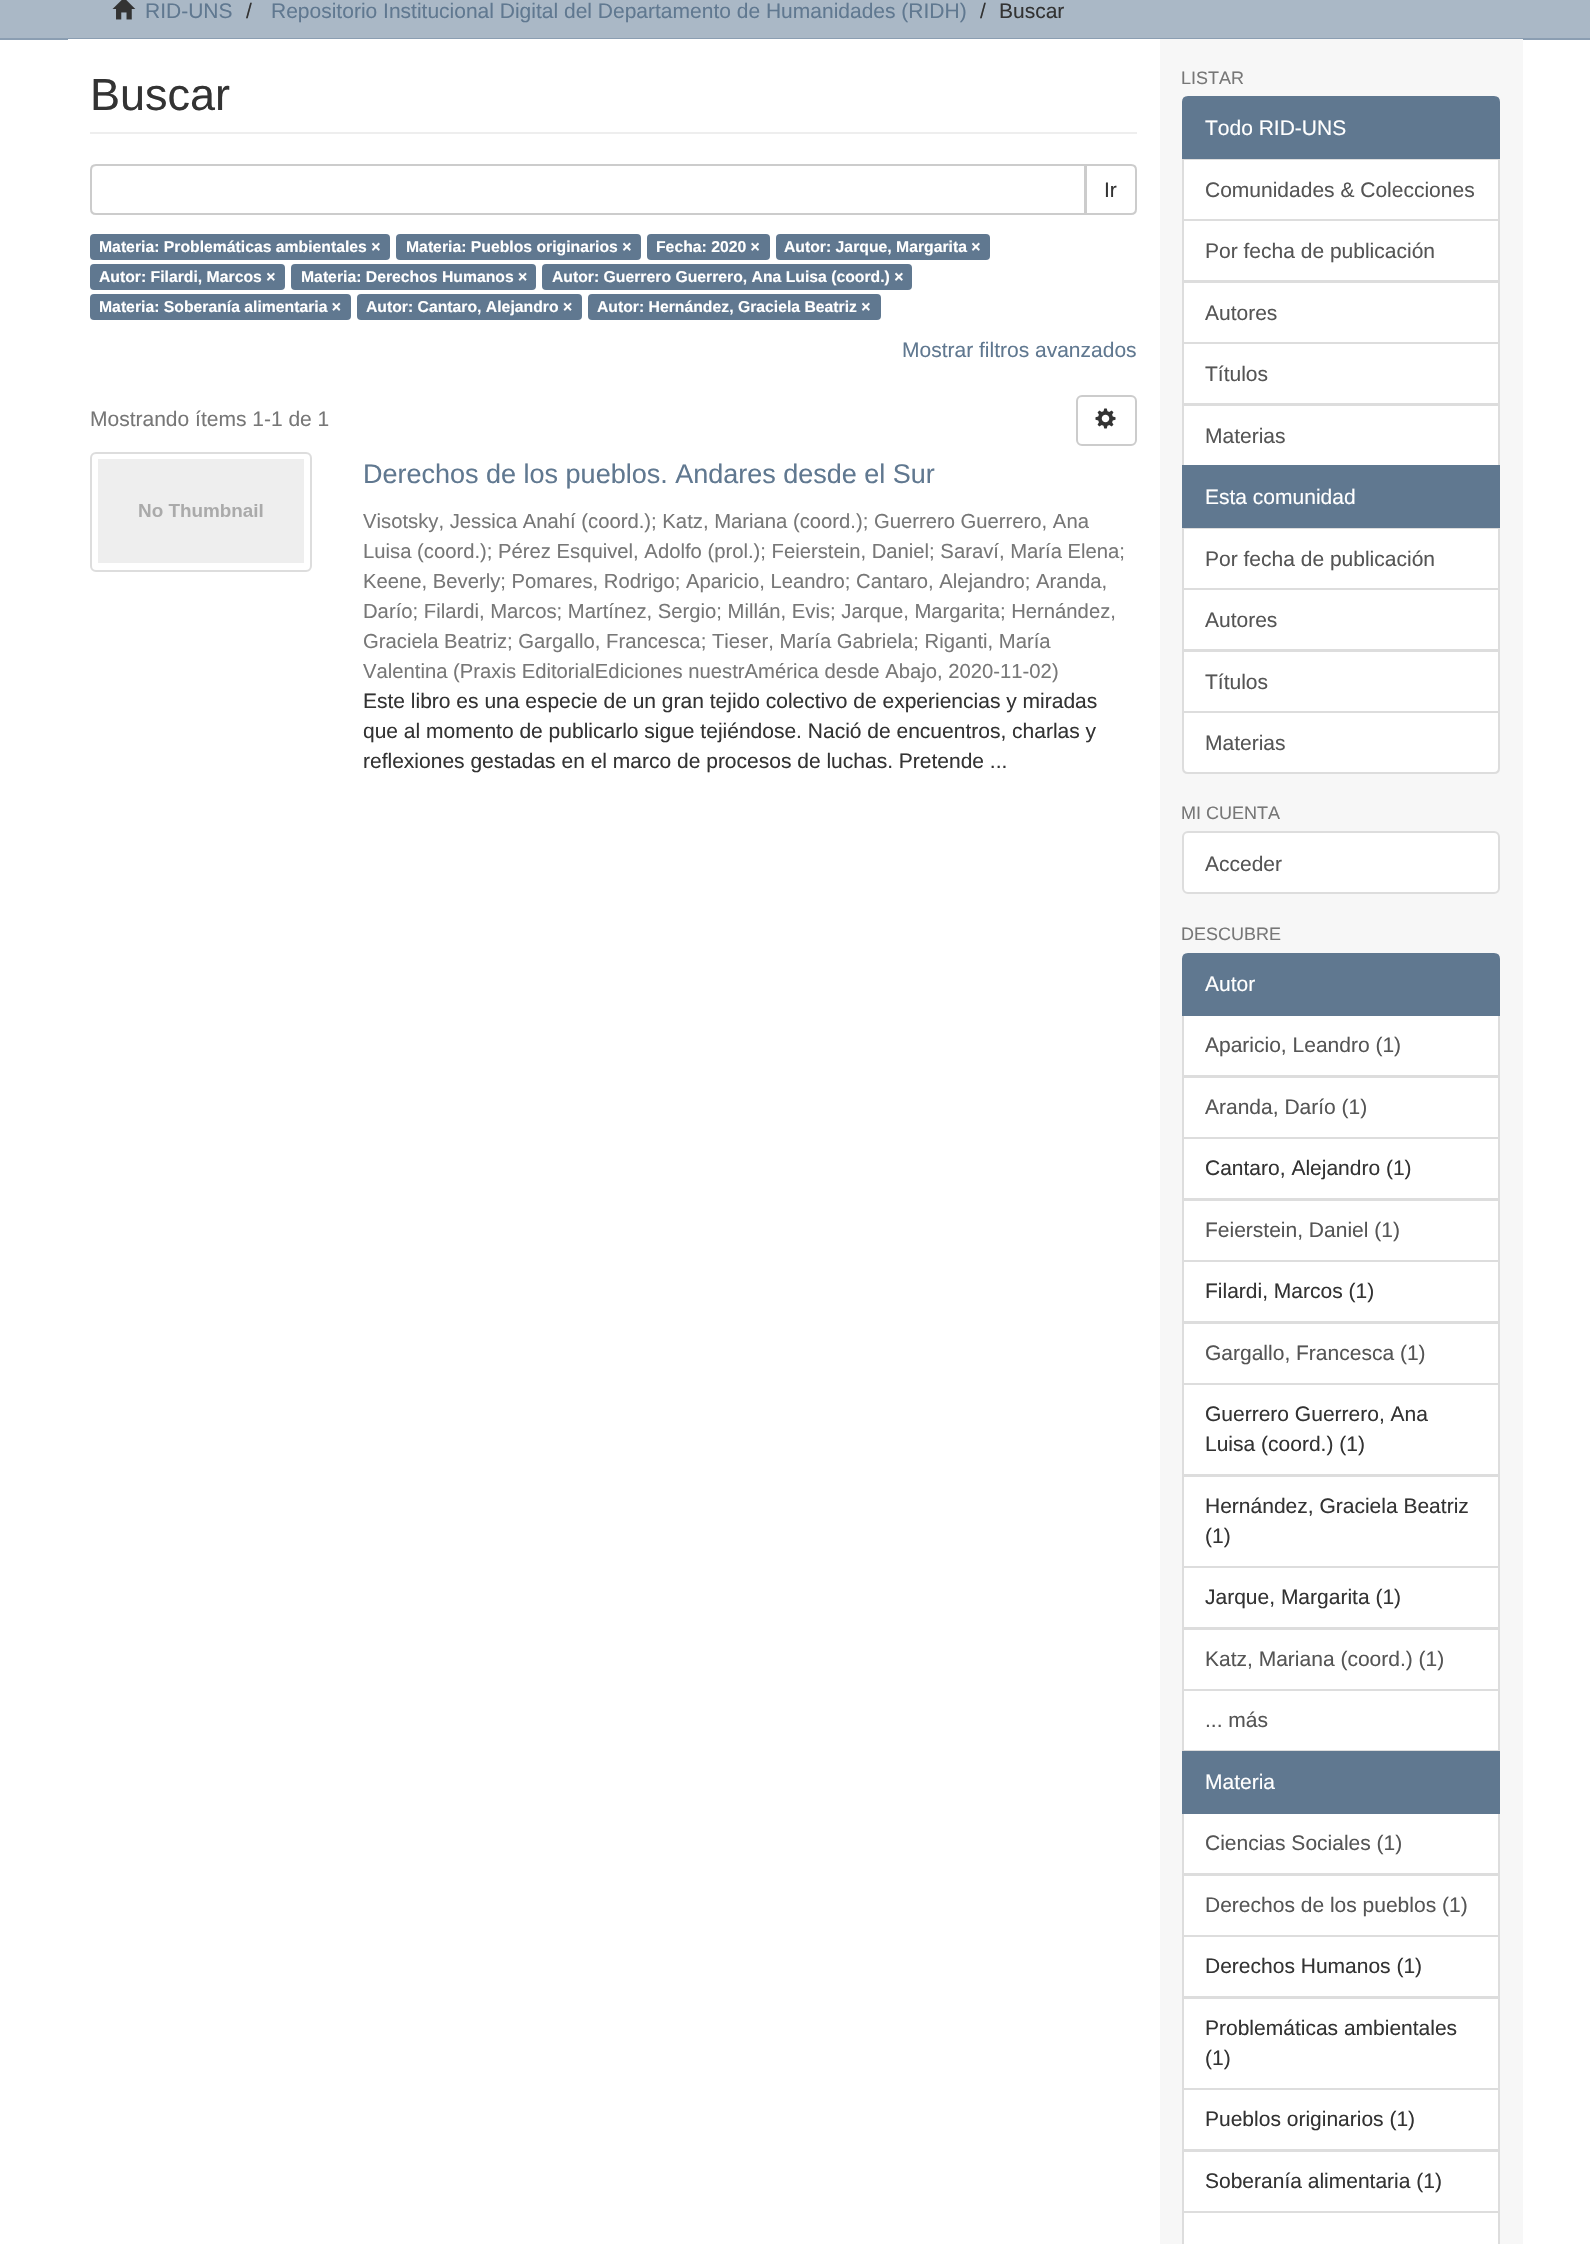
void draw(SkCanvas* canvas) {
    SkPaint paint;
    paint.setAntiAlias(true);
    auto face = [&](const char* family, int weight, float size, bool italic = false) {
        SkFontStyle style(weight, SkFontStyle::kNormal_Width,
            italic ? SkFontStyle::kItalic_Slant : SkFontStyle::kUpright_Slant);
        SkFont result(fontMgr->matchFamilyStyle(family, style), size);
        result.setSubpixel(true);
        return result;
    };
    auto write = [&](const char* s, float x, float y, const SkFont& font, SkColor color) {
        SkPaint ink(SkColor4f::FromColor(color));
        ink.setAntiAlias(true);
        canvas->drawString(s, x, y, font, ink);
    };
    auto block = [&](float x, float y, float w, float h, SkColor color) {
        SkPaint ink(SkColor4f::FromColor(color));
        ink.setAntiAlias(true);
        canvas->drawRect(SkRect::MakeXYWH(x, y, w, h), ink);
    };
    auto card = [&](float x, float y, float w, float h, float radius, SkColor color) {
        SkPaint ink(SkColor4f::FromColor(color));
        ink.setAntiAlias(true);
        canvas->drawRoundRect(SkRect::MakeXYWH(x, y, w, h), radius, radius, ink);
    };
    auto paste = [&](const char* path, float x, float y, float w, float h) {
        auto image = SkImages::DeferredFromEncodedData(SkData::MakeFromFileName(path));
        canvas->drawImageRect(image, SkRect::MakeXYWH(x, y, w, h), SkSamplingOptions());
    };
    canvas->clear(SK_ColorWHITE);
    block(0, 0, 1590, 38, SkColorSetRGB(170, 184, 198));
    block(0, 38, 1590, 2, SkColorSetRGB(139, 158, 178));
    paste("pic1.png", 112, 0, 24, 20);
    auto kFont1 = face("Liberation Sans", 400, 21);
    write("RID-UNS", 145, 18, kFont1, SkColorSetRGB(96, 120, 144));
    write("/", 246, 18, kFont1, SkColorSetRGB(51, 51, 51));
    write("Repositorio Institucional Digital del Departamento de Humanidades (RIDH)", 271, 18, kFont1, SkColorSetRGB(96, 120, 144));
    write("/", 980, 18, kFont1, SkColorSetRGB(51, 51, 51));
    write("Buscar", 999, 18, kFont1, SkColorSetRGB(51, 51, 51));
    block(1160, 39, 363, 2205, SkColorSetRGB(247, 247, 247));
    block(68, 39, 1092, 1, SK_ColorWHITE);
    block(90, 132, 1047, 2, SkColorSetRGB(238, 238, 238));
    auto kFont2 = face("Liberation Sans", 400, 45);
    write("Buscar", 90, 110, kFont2, SkColorSetRGB(51, 51, 51));
    paint.setStyle(SkPaint::kStroke_Style);
    paint.setStrokeWidth(2);
    paint.setColor(SkColorSetRGB(204, 204, 204));
    canvas->drawPath(SkPathBuilder().moveTo(1086, 165).lineTo(1131, 165).cubicTo(1134, 165, 1136, 167, 1136, 170).lineTo(1136, 209).cubicTo(1136, 212, 1134, 214, 1131, 214).lineTo(1086, 214).close().detach(), paint);
    paint.setStyle(SkPaint::kFill_Style);
    paint.setColor(SK_ColorWHITE);
    canvas->drawPath(SkPathBuilder().moveTo(96, 164).lineTo(1086, 164).lineTo(1086, 215).lineTo(96, 215).cubicTo(92.5f, 215, 90, 212.5f, 90, 209).lineTo(90, 170).cubicTo(90, 166.5f, 92.5f, 164, 96, 164).close().detach(), paint);
    paint.setColor(SkColorSetRGB(236, 236, 236));
    canvas->drawPath(SkPathBuilder().moveTo(96, 166).lineTo(1084, 166).lineTo(1084, 213).lineTo(1085, 213).lineTo(1085, 165).lineTo(97, 165).cubicTo(94, 165, 92, 168, 92, 171).cubicTo(92, 169, 94, 166, 96, 166).close().detach(), paint);
    paint.setStyle(SkPaint::kStroke_Style);
    paint.setColor(SkColorSetRGB(204, 204, 204));
    canvas->drawPath(SkPathBuilder().moveTo(96, 165).lineTo(1085, 165).lineTo(1085, 214).lineTo(96, 214).cubicTo(93, 214, 91, 212, 91, 209).lineTo(91, 170).cubicTo(91, 167, 93, 165, 96, 165).close().detach(), paint);
    write("Ir", 1104, 197, kFont1, SkColorSetRGB(51, 51, 51));
    card(90, 234, 300, 26, 4, SkColorSetRGB(96, 120, 144));
    auto kFont3 = face("Liberation Sans", 700, 15.75f);
    write("Materia: Problemáticas ambientales ×", 99, 252, kFont3, SK_ColorWHITE);
    card(396, 234, 245, 26, 4, SkColorSetRGB(96, 120, 144));
    write("Materia: Pueblos originarios ×", 406, 252, kFont3, SK_ColorWHITE);
    card(647, 234, 123, 26, 4, SkColorSetRGB(96, 120, 144));
    write("Fecha: 2020 ×", 656, 252, kFont3, SK_ColorWHITE);
    card(776, 234, 214, 26, 4, SkColorSetRGB(96, 120, 144));
    write("Autor: Jarque, Margarita ×", 784, 252, kFont3, SK_ColorWHITE);
    card(90, 264, 195, 26, 4, SkColorSetRGB(96, 120, 144));
    write("Autor: Filardi, Marcos ×", 99, 282, kFont3, SK_ColorWHITE);
    card(291, 264, 245, 26, 4, SkColorSetRGB(96, 120, 144));
    write("Materia: Derechos Humanos ×", 301, 282, kFont3, SK_ColorWHITE);
    card(542, 264, 370, 26, 4, SkColorSetRGB(96, 120, 144));
    write("Autor: Guerrero Guerrero, Ana Luisa (coord.) ×", 552, 282, kFont3, SK_ColorWHITE);
    card(90, 294, 261, 26, 4, SkColorSetRGB(96, 120, 144));
    write("Materia: Soberanía alimentaria ×", 99, 312, kFont3, SK_ColorWHITE);
    card(357, 294, 225, 26, 4, SkColorSetRGB(96, 120, 144));
    write("Autor: Cantaro, Alejandro ×", 366, 312, kFont3, SK_ColorWHITE);
    card(588, 294, 293, 26, 4, SkColorSetRGB(96, 120, 144));
    write("Autor: Hernández, Graciela Beatriz ×", 597, 312, kFont3, SK_ColorWHITE);
    write("Mostrar filtros avanzados", 902, 357, kFont1, SkColorSetRGB(96, 120, 144));
    write("Mostrando ítems 1-1 de 1", 90, 426, kFont1, SkColorSetRGB(119, 119, 119));
    canvas->drawRoundRect(SkRect::MakeXYWH(1077, 396, 59, 49), 5, 5, paint);
    paste("pic2.png", 1095, 408, 21, 21);
    paint.setColor(SkColorSetRGB(221, 221, 221));
    canvas->drawRoundRect(SkRect::MakeXYWH(91, 453, 220, 118), 5, 5, paint);
    paste("pic3.png", 98, 459, 206, 104);
    auto kFont4 = face("Liberation Sans", 400, 27);
    write("Derechos de los pueblos. Andares desde el Sur", 363, 483, kFont4, SkColorSetRGB(96, 120, 144));
    auto kFont5 = face("Liberation Sans", 400, 20.25f);
    write("Visotsky, Jessica Anahí (coord.); Katz, Mariana (coord.); Guerrero Guerrero, Ana", 363, 528, kFont5, SkColorSetRGB(119, 119, 119));
    write("Luisa (coord.); Pérez Esquivel, Adolfo (prol.); Feierstein, Daniel; Saraví, María Elena;", 363, 558, kFont5, SkColorSetRGB(119, 119, 119));
    write("Keene, Beverly; Pomares, Rodrigo; Aparicio, Leandro; Cantaro, Alejandro; Aranda,", 363, 588, kFont5, SkColorSetRGB(119, 119, 119));
    write("Darío; Filardi, Marcos; Martínez, Sergio; Millán, Evis; Jarque, Margarita; Hernández,", 363, 618, kFont5, SkColorSetRGB(119, 119, 119));
    write("Graciela Beatriz; Gargallo, Francesca; Tieser, María Gabriela; Riganti, María", 363, 648, kFont5, SkColorSetRGB(119, 119, 119));
    write("Valentina (Praxis EditorialEdiciones nuestrAmérica desde Abajo, 2020-11-02)", 363, 678, kFont5, SkColorSetRGB(119, 119, 119));
    write("Este libro es una especie de un gran tejido colectivo de experiencias y miradas", 363, 708, kFont1, SkColorSetRGB(51, 51, 51));
    write("que al momento de publicarlo sigue tejiéndose. Nació de encuentros, charlas y", 363, 738, kFont1, SkColorSetRGB(51, 51, 51));
    write("reflexiones gestadas en el marco de procesos de luchas. Pretende ...", 363, 768, kFont1, SkColorSetRGB(51, 51, 51));
    auto kFont6 = face("Liberation Sans", 400, 18);
    write("LISTAR", 1181, 84, kFont6, SkColorSetRGB(119, 119, 119));
    paint.setStyle(SkPaint::kFill_Style);
    paint.setColor(SK_ColorWHITE);
    canvas->drawRect(SkRect::MakeXYWH(1183, 159, 316, 61), paint);
    paint.setStyle(SkPaint::kStroke_Style);
    paint.setColor(SkColorSetRGB(221, 221, 221));
    canvas->drawRect(SkRect::MakeXYWH(1183, 159, 316, 61), paint);
    paint.setStyle(SkPaint::kFill_Style);
    paint.setColor(SkColorSetRGB(96, 120, 144));
    canvas->drawPath(SkPathBuilder().moveTo(1188, 97).lineTo(1494, 97).cubicTo(1497, 97, 1499, 99, 1499, 102).lineTo(1499, 158).lineTo(1183, 158).lineTo(1183, 102).cubicTo(1183, 99, 1185, 97, 1188, 97).close().detach(), paint);
    paint.setStyle(SkPaint::kStroke_Style);
    canvas->drawPath(SkPathBuilder().moveTo(1188, 97).lineTo(1494, 97).cubicTo(1497, 97, 1499, 99, 1499, 102).lineTo(1499, 158).lineTo(1183, 158).lineTo(1183, 102).cubicTo(1183, 99, 1185, 97, 1188, 97).close().detach(), paint);
    write("Todo RID-UNS", 1205, 135, kFont1, SK_ColorWHITE);
    write("Comunidades & Colecciones", 1205, 197, kFont1, SkColorSetRGB(85, 85, 85));
    paint.setStyle(SkPaint::kFill_Style);
    paint.setColor(SK_ColorWHITE);
    canvas->drawRect(SkRect::MakeXYWH(1183, 220, 316, 61), paint);
    paint.setStyle(SkPaint::kStroke_Style);
    paint.setColor(SkColorSetRGB(221, 221, 221));
    canvas->drawRect(SkRect::MakeXYWH(1183, 220, 316, 61), paint);
    write("Por fecha de publicación", 1205, 258, kFont1, SkColorSetRGB(85, 85, 85));
    paint.setStyle(SkPaint::kFill_Style);
    paint.setColor(SK_ColorWHITE);
    canvas->drawRect(SkRect::MakeXYWH(1183, 282, 316, 61), paint);
    paint.setStyle(SkPaint::kStroke_Style);
    paint.setColor(SkColorSetRGB(221, 221, 221));
    canvas->drawRect(SkRect::MakeXYWH(1183, 282, 316, 61), paint);
    write("Autores", 1205, 320, kFont1, SkColorSetRGB(85, 85, 85));
    paint.setStyle(SkPaint::kFill_Style);
    paint.setColor(SK_ColorWHITE);
    canvas->drawRect(SkRect::MakeXYWH(1183, 343, 316, 61), paint);
    paint.setStyle(SkPaint::kStroke_Style);
    paint.setColor(SkColorSetRGB(221, 221, 221));
    canvas->drawRect(SkRect::MakeXYWH(1183, 343, 316, 61), paint);
    write("Títulos", 1205, 381, kFont1, SkColorSetRGB(85, 85, 85));
    paint.setStyle(SkPaint::kFill_Style);
    paint.setColor(SK_ColorWHITE);
    canvas->drawRect(SkRect::MakeXYWH(1183, 405, 316, 61), paint);
    paint.setStyle(SkPaint::kStroke_Style);
    paint.setColor(SkColorSetRGB(221, 221, 221));
    canvas->drawRect(SkRect::MakeXYWH(1183, 405, 316, 61), paint);
    write("Materias", 1205, 443, kFont1, SkColorSetRGB(85, 85, 85));
    paint.setStyle(SkPaint::kFill_Style);
    paint.setColor(SK_ColorWHITE);
    canvas->drawRect(SkRect::MakeXYWH(1183, 528, 316, 61), paint);
    paint.setStyle(SkPaint::kStroke_Style);
    paint.setColor(SkColorSetRGB(221, 221, 221));
    canvas->drawRect(SkRect::MakeXYWH(1183, 528, 316, 61), paint);
    block(1182, 465, 318, 63, SkColorSetRGB(96, 120, 144));
    write("Esta comunidad", 1205, 504, kFont1, SK_ColorWHITE);
    write("Por fecha de publicación", 1205, 566, kFont1, SkColorSetRGB(85, 85, 85));
    paint.setStyle(SkPaint::kFill_Style);
    paint.setColor(SK_ColorWHITE);
    canvas->drawRect(SkRect::MakeXYWH(1183, 589, 316, 61), paint);
    paint.setStyle(SkPaint::kStroke_Style);
    paint.setColor(SkColorSetRGB(221, 221, 221));
    canvas->drawRect(SkRect::MakeXYWH(1183, 589, 316, 61), paint);
    write("Autores", 1205, 627, kFont1, SkColorSetRGB(85, 85, 85));
    paint.setStyle(SkPaint::kFill_Style);
    paint.setColor(SK_ColorWHITE);
    canvas->drawRect(SkRect::MakeXYWH(1183, 651, 316, 61), paint);
    paint.setStyle(SkPaint::kStroke_Style);
    paint.setColor(SkColorSetRGB(221, 221, 221));
    canvas->drawRect(SkRect::MakeXYWH(1183, 651, 316, 61), paint);
    write("Títulos", 1205, 689, kFont1, SkColorSetRGB(85, 85, 85));
    paint.setStyle(SkPaint::kFill_Style);
    paint.setColor(SK_ColorWHITE);
    canvas->drawPath(SkPathBuilder().moveTo(1183, 712).lineTo(1499, 712).lineTo(1499, 768).cubicTo(1499, 771, 1497, 773, 1494, 773).lineTo(1188, 773).cubicTo(1185, 773, 1183, 771, 1183, 768).close().detach(), paint);
    paint.setStyle(SkPaint::kStroke_Style);
    paint.setColor(SkColorSetRGB(221, 221, 221));
    canvas->drawPath(SkPathBuilder().moveTo(1183, 712).lineTo(1499, 712).lineTo(1499, 768).cubicTo(1499, 771, 1497, 773, 1494, 773).lineTo(1188, 773).cubicTo(1185, 773, 1183, 771, 1183, 768).close().detach(), paint);
    write("Materias", 1205, 750, kFont1, SkColorSetRGB(85, 85, 85));
    write("MI CUENTA", 1181, 819, kFont6, SkColorSetRGB(119, 119, 119));
    paint.setStyle(SkPaint::kFill_Style);
    paint.setColor(SK_ColorWHITE);
    canvas->drawRoundRect(SkRect::MakeXYWH(1183, 832, 316, 61), 5, 5, paint);
    paint.setStyle(SkPaint::kStroke_Style);
    paint.setColor(SkColorSetRGB(221, 221, 221));
    canvas->drawRoundRect(SkRect::MakeXYWH(1183, 832, 316, 61), 5, 5, paint);
    write("Acceder", 1205, 871, kFont1, SkColorSetRGB(85, 85, 85));
    write("DESCUBRE", 1181, 940, kFont6, SkColorSetRGB(119, 119, 119));
    paint.setStyle(SkPaint::kFill_Style);
    paint.setColor(SK_ColorWHITE);
    canvas->drawRect(SkRect::MakeXYWH(1183, 1015, 316, 61), paint);
    paint.setStyle(SkPaint::kStroke_Style);
    paint.setColor(SkColorSetRGB(221, 221, 221));
    canvas->drawRect(SkRect::MakeXYWH(1183, 1015, 316, 61), paint);
    paint.setStyle(SkPaint::kFill_Style);
    paint.setColor(SkColorSetRGB(96, 120, 144));
    canvas->drawPath(SkPathBuilder().moveTo(1188, 954).lineTo(1494, 954).cubicTo(1497, 954, 1499, 956, 1499, 959).lineTo(1499, 1015).lineTo(1183, 1015).lineTo(1183, 959).cubicTo(1183, 956, 1185, 954, 1188, 954).close().detach(), paint);
    paint.setStyle(SkPaint::kStroke_Style);
    canvas->drawPath(SkPathBuilder().moveTo(1188, 954).lineTo(1494, 954).cubicTo(1497, 954, 1499, 956, 1499, 959).lineTo(1499, 1015).lineTo(1183, 1015).lineTo(1183, 959).cubicTo(1183, 956, 1185, 954, 1188, 954).close().detach(), paint);
    write("Autor", 1205, 991, kFont1, SK_ColorWHITE);
    write("Aparicio, Leandro (1)", 1205, 1052, kFont1, SkColorSetRGB(85, 85, 85));
    paint.setStyle(SkPaint::kFill_Style);
    paint.setColor(SK_ColorWHITE);
    canvas->drawRect(SkRect::MakeXYWH(1183, 1077, 316, 61), paint);
    paint.setStyle(SkPaint::kStroke_Style);
    paint.setColor(SkColorSetRGB(221, 221, 221));
    canvas->drawRect(SkRect::MakeXYWH(1183, 1077, 316, 61), paint);
    write("Aranda, Darío (1)", 1205, 1114, kFont1, SkColorSetRGB(85, 85, 85));
    paint.setStyle(SkPaint::kFill_Style);
    paint.setColor(SK_ColorWHITE);
    canvas->drawRect(SkRect::MakeXYWH(1183, 1138, 316, 61), paint);
    paint.setStyle(SkPaint::kStroke_Style);
    paint.setColor(SkColorSetRGB(221, 221, 221));
    canvas->drawRect(SkRect::MakeXYWH(1183, 1138, 316, 61), paint);
    write("Cantaro, Alejandro (1)", 1205, 1175, kFont1, SkColorSetRGB(51, 51, 51));
    paint.setStyle(SkPaint::kFill_Style);
    paint.setColor(SK_ColorWHITE);
    canvas->drawRect(SkRect::MakeXYWH(1183, 1200, 316, 61), paint);
    paint.setStyle(SkPaint::kStroke_Style);
    paint.setColor(SkColorSetRGB(221, 221, 221));
    canvas->drawRect(SkRect::MakeXYWH(1183, 1200, 316, 61), paint);
    write("Feierstein, Daniel (1)", 1205, 1237, kFont1, SkColorSetRGB(85, 85, 85));
    paint.setStyle(SkPaint::kFill_Style);
    paint.setColor(SK_ColorWHITE);
    canvas->drawRect(SkRect::MakeXYWH(1183, 1261, 316, 61), paint);
    paint.setStyle(SkPaint::kStroke_Style);
    paint.setColor(SkColorSetRGB(221, 221, 221));
    canvas->drawRect(SkRect::MakeXYWH(1183, 1261, 316, 61), paint);
    write("Filardi, Marcos (1)", 1205, 1298, kFont1, SkColorSetRGB(51, 51, 51));
    paint.setStyle(SkPaint::kFill_Style);
    paint.setColor(SK_ColorWHITE);
    canvas->drawRect(SkRect::MakeXYWH(1183, 1323, 316, 61), paint);
    paint.setStyle(SkPaint::kStroke_Style);
    paint.setColor(SkColorSetRGB(221, 221, 221));
    canvas->drawRect(SkRect::MakeXYWH(1183, 1323, 316, 61), paint);
    write("Gargallo, Francesca (1)", 1205, 1360, kFont1, SkColorSetRGB(85, 85, 85));
    paint.setStyle(SkPaint::kFill_Style);
    paint.setColor(SK_ColorWHITE);
    canvas->drawRect(SkRect::MakeXYWH(1183, 1384, 316, 91), paint);
    paint.setStyle(SkPaint::kStroke_Style);
    paint.setColor(SkColorSetRGB(221, 221, 221));
    canvas->drawRect(SkRect::MakeXYWH(1183, 1384, 316, 91), paint);
    write("Guerrero Guerrero, Ana", 1205, 1421, kFont1, SkColorSetRGB(51, 51, 51));
    write("Luisa (coord.) (1)", 1205, 1451, kFont1, SkColorSetRGB(51, 51, 51));
    paint.setStyle(SkPaint::kFill_Style);
    paint.setColor(SK_ColorWHITE);
    canvas->drawRect(SkRect::MakeXYWH(1183, 1476, 316, 91), paint);
    paint.setStyle(SkPaint::kStroke_Style);
    paint.setColor(SkColorSetRGB(221, 221, 221));
    canvas->drawRect(SkRect::MakeXYWH(1183, 1476, 316, 91), paint);
    write("Hernández, Graciela Beatriz", 1205, 1513, kFont1, SkColorSetRGB(51, 51, 51));
    write("(1)", 1205, 1543, kFont1, SkColorSetRGB(51, 51, 51));
    paint.setStyle(SkPaint::kFill_Style);
    paint.setColor(SK_ColorWHITE);
    canvas->drawRect(SkRect::MakeXYWH(1183, 1567, 316, 61), paint);
    paint.setStyle(SkPaint::kStroke_Style);
    paint.setColor(SkColorSetRGB(221, 221, 221));
    canvas->drawRect(SkRect::MakeXYWH(1183, 1567, 316, 61), paint);
    write("Jarque, Margarita (1)", 1205, 1604, kFont1, SkColorSetRGB(51, 51, 51));
    paint.setStyle(SkPaint::kFill_Style);
    paint.setColor(SK_ColorWHITE);
    canvas->drawRect(SkRect::MakeXYWH(1183, 1629, 316, 61), paint);
    paint.setStyle(SkPaint::kStroke_Style);
    paint.setColor(SkColorSetRGB(221, 221, 221));
    canvas->drawRect(SkRect::MakeXYWH(1183, 1629, 316, 61), paint);
    write("Katz, Mariana (coord.) (1)", 1205, 1666, kFont1, SkColorSetRGB(85, 85, 85));
    paint.setStyle(SkPaint::kFill_Style);
    paint.setColor(SK_ColorWHITE);
    canvas->drawRect(SkRect::MakeXYWH(1183, 1690, 316, 61), paint);
    paint.setStyle(SkPaint::kStroke_Style);
    paint.setColor(SkColorSetRGB(221, 221, 221));
    canvas->drawRect(SkRect::MakeXYWH(1183, 1690, 316, 61), paint);
    write("... más", 1205, 1727, kFont1, SkColorSetRGB(85, 85, 85));
    paint.setStyle(SkPaint::kFill_Style);
    paint.setColor(SK_ColorWHITE);
    canvas->drawRect(SkRect::MakeXYWH(1183, 1813, 316, 61), paint);
    paint.setStyle(SkPaint::kStroke_Style);
    paint.setColor(SkColorSetRGB(221, 221, 221));
    canvas->drawRect(SkRect::MakeXYWH(1183, 1813, 316, 61), paint);
    block(1182, 1751, 318, 63, SkColorSetRGB(96, 120, 144));
    write("Materia", 1205, 1789, kFont1, SK_ColorWHITE);
    write("Ciencias Sociales (1)", 1205, 1850, kFont1, SkColorSetRGB(85, 85, 85));
    paint.setStyle(SkPaint::kFill_Style);
    paint.setColor(SK_ColorWHITE);
    canvas->drawRect(SkRect::MakeXYWH(1183, 1875, 316, 61), paint);
    paint.setStyle(SkPaint::kStroke_Style);
    paint.setColor(SkColorSetRGB(221, 221, 221));
    canvas->drawRect(SkRect::MakeXYWH(1183, 1875, 316, 61), paint);
    write("Derechos de los pueblos (1)", 1205, 1912, kFont1, SkColorSetRGB(85, 85, 85));
    paint.setStyle(SkPaint::kFill_Style);
    paint.setColor(SK_ColorWHITE);
    canvas->drawRect(SkRect::MakeXYWH(1183, 1936, 316, 61), paint);
    paint.setStyle(SkPaint::kStroke_Style);
    paint.setColor(SkColorSetRGB(221, 221, 221));
    canvas->drawRect(SkRect::MakeXYWH(1183, 1936, 316, 61), paint);
    write("Derechos Humanos (1)", 1205, 1973, kFont1, SkColorSetRGB(51, 51, 51));
    paint.setStyle(SkPaint::kFill_Style);
    paint.setColor(SK_ColorWHITE);
    canvas->drawRect(SkRect::MakeXYWH(1183, 1998, 316, 91), paint);
    paint.setStyle(SkPaint::kStroke_Style);
    paint.setColor(SkColorSetRGB(221, 221, 221));
    canvas->drawRect(SkRect::MakeXYWH(1183, 1998, 316, 91), paint);
    write("Problemáticas ambientales", 1205, 2035, kFont1, SkColorSetRGB(51, 51, 51));
    write("(1)", 1205, 2065, kFont1, SkColorSetRGB(51, 51, 51));
    paint.setStyle(SkPaint::kFill_Style);
    paint.setColor(SK_ColorWHITE);
    canvas->drawRect(SkRect::MakeXYWH(1183, 2089, 316, 61), paint);
    paint.setStyle(SkPaint::kStroke_Style);
    paint.setColor(SkColorSetRGB(221, 221, 221));
    canvas->drawRect(SkRect::MakeXYWH(1183, 2089, 316, 61), paint);
    write("Pueblos originarios (1)", 1205, 2126, kFont1, SkColorSetRGB(51, 51, 51));
    paint.setStyle(SkPaint::kFill_Style);
    paint.setColor(SK_ColorWHITE);
    canvas->drawRect(SkRect::MakeXYWH(1183, 2151, 316, 61), paint);
    paint.setStyle(SkPaint::kStroke_Style);
    paint.setColor(SkColorSetRGB(221, 221, 221));
    canvas->drawRect(SkRect::MakeXYWH(1183, 2151, 316, 61), paint);
    write("Soberanía alimentaria (1)", 1205, 2188, kFont1, SkColorSetRGB(51, 51, 51));
    paint.setStyle(SkPaint::kFill_Style);
    paint.setColor(SK_ColorWHITE);
    canvas->drawRect(SkRect::MakeXYWH(1183, 2212, 316, 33), paint);
    paint.setStyle(SkPaint::kStroke_Style);
    paint.setColor(SkColorSetRGB(221, 221, 221));
    canvas->drawRect(SkRect::MakeXYWH(1183, 2212, 316, 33), paint);
}
